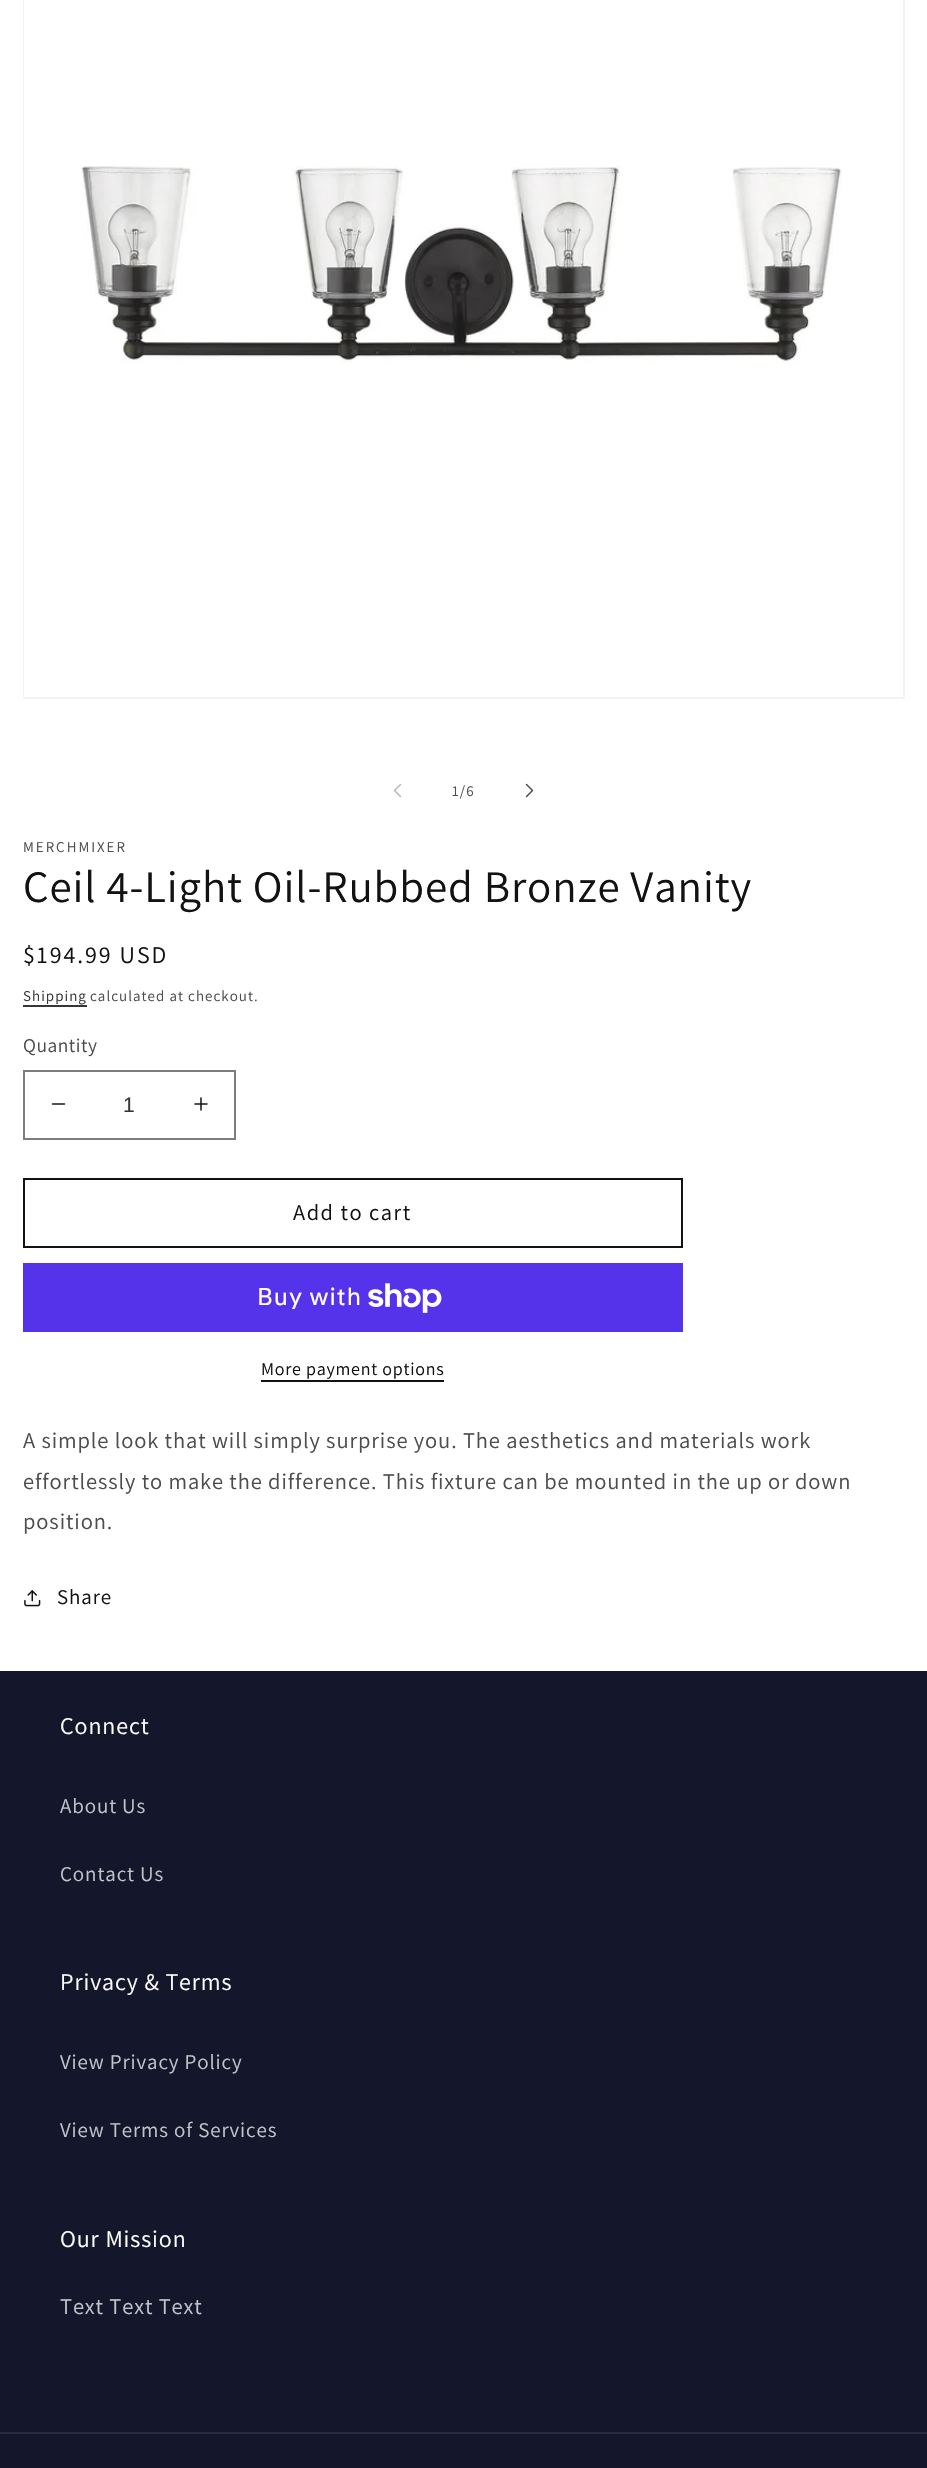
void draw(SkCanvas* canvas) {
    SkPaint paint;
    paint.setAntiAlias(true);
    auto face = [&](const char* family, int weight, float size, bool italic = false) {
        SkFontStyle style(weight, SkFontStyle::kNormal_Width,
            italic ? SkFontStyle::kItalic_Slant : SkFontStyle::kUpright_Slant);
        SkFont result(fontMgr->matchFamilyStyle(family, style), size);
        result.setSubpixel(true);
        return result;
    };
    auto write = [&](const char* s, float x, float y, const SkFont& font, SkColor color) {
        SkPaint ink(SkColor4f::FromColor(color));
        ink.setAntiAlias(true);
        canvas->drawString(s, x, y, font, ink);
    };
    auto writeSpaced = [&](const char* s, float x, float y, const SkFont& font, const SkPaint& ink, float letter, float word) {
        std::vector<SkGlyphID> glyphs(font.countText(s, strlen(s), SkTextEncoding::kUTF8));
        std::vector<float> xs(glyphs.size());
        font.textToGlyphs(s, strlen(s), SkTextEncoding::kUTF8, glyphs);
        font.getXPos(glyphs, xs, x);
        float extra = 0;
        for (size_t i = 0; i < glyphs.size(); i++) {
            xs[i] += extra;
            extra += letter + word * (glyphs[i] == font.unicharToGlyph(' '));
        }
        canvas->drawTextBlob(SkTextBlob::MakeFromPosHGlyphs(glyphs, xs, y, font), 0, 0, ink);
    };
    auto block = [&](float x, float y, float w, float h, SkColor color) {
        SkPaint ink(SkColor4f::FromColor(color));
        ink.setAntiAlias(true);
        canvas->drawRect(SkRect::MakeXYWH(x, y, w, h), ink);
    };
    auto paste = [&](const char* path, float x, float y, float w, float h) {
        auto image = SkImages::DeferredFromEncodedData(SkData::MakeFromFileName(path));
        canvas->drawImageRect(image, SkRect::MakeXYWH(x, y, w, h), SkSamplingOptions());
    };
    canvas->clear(SK_ColorWHITE);
    paint.setStyle(SkPaint::kStroke_Style);
    paint.setStrokeWidth(2);
    paint.setColor(SkColorSetRGB(243, 243, 243));
    canvas->drawRect(SkRect::MakeXYWH(24, -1, 880, 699), paint);
    paste("pic1.png", 24, 0, 818, 697);
    paste("pic2.png", 393, 783, 9, 15);
    auto kFont1 = face("Assistant", 400, 15);
    paint.setStyle(SkPaint::kFill_Style);
    paint.setColor(SkColorSetRGB(77, 77, 77));
    writeSpaced("1/6", 452, 796, kFont1, paint, 1.05f, 0);
    paste("pic3.png", 525, 783, 9, 15);
    writeSpaced("MERCHMIXER", 23, 852, kFont1, paint, 2, 0);
    auto kFont2 = face("Assistant", 400, 45);
    paint.setColor(SkColorSetRGB(18, 18, 18));
    writeSpaced("Ceil 4-Light Oil-Rubbed Bronze Vanity", 23, 902, kFont2, paint, 0.9f, 0);
    auto kFont3 = face("Assistant", 400, 24);
    writeSpaced("$194.99 USD", 23, 963, kFont3, paint, 2, 0);
    paint.setColor(SkColorSetRGB(54, 54, 54));
    writeSpaced("Shipping", 23, 1001, kFont1, paint, 1.05f, 0);
    block(23, 1005, 64, 2, SkColorSetRGB(54, 54, 54));
    paint.setColor(SkColorSetRGB(77, 77, 77));
    writeSpaced("calculated at checkout.", 90, 1001, kFont1, paint, 1.05f, 0);
    auto kFont4 = face("Assistant", 400, 19.5f);
    writeSpaced("Quantity", 23, 1052, kFont4, paint, 0.5f, 0);
    paste("pic4.png", 51, 1103, 15, 2);
    paste("pic5.png", 194, 1097, 14, 14);
    paint.setStyle(SkPaint::kStroke_Style);
    paint.setColor(SkColorSetRGB(125, 125, 125));
    canvas->drawRect(SkRect::MakeXYWH(24, 1071, 211, 68), paint);
    auto kFont5 = face("Liberation Sans", 400, 21);
    write("1", 123, 1112, kFont5, SkColorSetRGB(54, 54, 54));
    paint.setColor(SkColorSetRGB(18, 18, 18));
    canvas->drawRect(SkRect::MakeXYWH(24, 1179, 658, 68), paint);
    auto kFont6 = face("Assistant", 400, 22.5f);
    paint.setStyle(SkPaint::kFill_Style);
    writeSpaced("Add to cart", 293, 1220, kFont6, paint, 1.5f, 0);
    block(23, 1263, 660, 69, SkColorSetRGB(84, 51, 235));
    auto kFont7 = face("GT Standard", 400, 24);
    paint.setColor(SK_ColorWHITE);
    writeSpaced("Buy with", 257, 1305, kFont7, paint, 0.9f, 0);
    paste("pic6.png", 368, 1283, 74, 30);
    auto kFont8 = face("Assistant", 400, 18);
    paint.setColor(SkColorSetRGB(18, 18, 18));
    writeSpaced("More payment options", 261, 1375, kFont8, paint, 0.75f, 0);
    block(261, 1380, 183, 2, SkColorSetRGB(18, 18, 18));
    paint.setColor(SkColorSetRGB(77, 77, 77));
    writeSpaced("A simple look that will simply surprise you. The aesthetics and materials work", 23, 1448, kFont6, paint, 0.9f, 0);
    writeSpaced("effortlessly to make the difference. This fixture can be mounted in the up or down", 23, 1489, kFont6, paint, 0.9f, 0);
    writeSpaced("position.", 23, 1529, kFont6, paint, 0.9f, 0);
    paste("pic7.png", 24, 1590, 17, 17);
    auto kFont9 = face("Assistant", 400, 21);
    paint.setColor(SkColorSetRGB(18, 18, 18));
    writeSpaced("Share", 57, 1604, kFont9, paint, 0.9f, 0);
    block(0, 1671, 927, 797, SkColorSetRGB(20, 23, 43));
    paint.setColor(SK_ColorWHITE);
    writeSpaced("Connect", 60, 1734, kFont3, paint, 0.9f, 0);
    paint.setColor(SkColorSetRGB(196, 197, 202));
    writeSpaced("About Us", 60, 1813, kFont9, paint, 0.9f, 0);
    writeSpaced("Contact Us", 60, 1881, kFont9, paint, 0.9f, 0);
    paint.setColor(SK_ColorWHITE);
    writeSpaced("Privacy & Terms", 60, 1990, kFont3, paint, 0.9f, 0);
    paint.setColor(SkColorSetRGB(196, 197, 202));
    writeSpaced("View Privacy Policy", 60, 2069, kFont9, paint, 0.9f, 0);
    writeSpaced("View Terms of Services", 60, 2137, kFont9, paint, 0.9f, 0);
    paint.setColor(SK_ColorWHITE);
    writeSpaced("Our Mission", 60, 2247, kFont3, paint, 0.9f, 0);
    paint.setColor(SkColorSetRGB(196, 197, 202));
    writeSpaced("Text Text Text", 60, 2314, kFont6, paint, 0.9f, 0);
    block(0, 2432, 927, 2, SkColorSetRGB(39, 42, 60));
}
